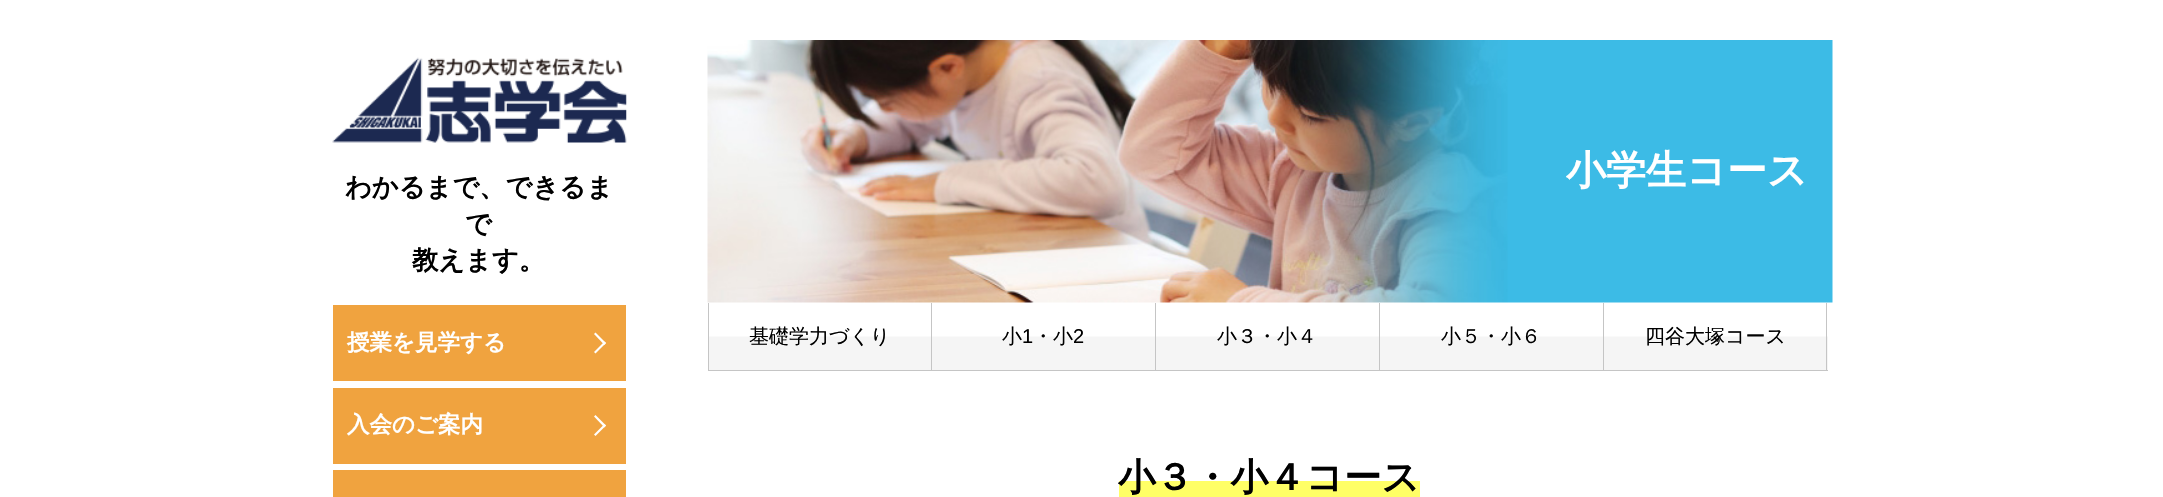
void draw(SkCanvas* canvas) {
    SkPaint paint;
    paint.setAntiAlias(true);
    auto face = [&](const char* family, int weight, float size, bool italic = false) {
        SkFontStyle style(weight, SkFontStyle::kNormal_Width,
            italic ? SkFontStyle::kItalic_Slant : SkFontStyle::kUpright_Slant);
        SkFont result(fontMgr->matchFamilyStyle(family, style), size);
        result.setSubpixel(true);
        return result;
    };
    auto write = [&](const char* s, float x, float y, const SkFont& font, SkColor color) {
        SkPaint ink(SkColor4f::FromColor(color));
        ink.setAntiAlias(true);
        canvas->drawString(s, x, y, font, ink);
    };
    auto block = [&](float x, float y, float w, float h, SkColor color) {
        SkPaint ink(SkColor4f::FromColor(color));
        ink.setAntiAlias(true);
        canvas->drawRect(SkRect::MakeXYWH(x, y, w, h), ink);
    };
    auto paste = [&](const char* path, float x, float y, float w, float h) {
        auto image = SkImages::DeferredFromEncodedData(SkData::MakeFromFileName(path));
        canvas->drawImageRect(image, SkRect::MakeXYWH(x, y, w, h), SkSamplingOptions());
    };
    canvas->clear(SK_ColorWHITE);
    paste("pic1.png", 332, 57, 295, 86);
    auto kFont1 = face("WenQuanYi Zen Hei", 700, 26.25f);
    write("わかるまで、できるま", 345, 196, kFont1, SK_ColorBLACK);
    write("で", 465, 233, kFont1, SK_ColorBLACK);
    write("教えます。", 412, 269, kFont1, SK_ColorBLACK);
    block(333, 305, 293, 76, SkColorSetRGB(240, 163, 63));
    auto kFont2 = face("WenQuanYi Zen Hei", 700, 22.5f);
    write("授業を見学する", 347, 350, kFont2, SK_ColorWHITE);
    paint.setColor(SK_ColorWHITE);
    canvas->drawPath(SkPathBuilder().moveTo(595.5f, 332.5f).lineTo(606, 343).lineTo(604.5f, 345).lineTo(594, 334).close().detach(), paint);
    canvas->drawPath(SkPathBuilder().moveTo(604.5f, 341.5f).lineTo(606, 343).lineTo(595.5f, 353.5f).lineTo(594, 352).close().detach(), paint);
    block(333, 388, 293, 76, SkColorSetRGB(240, 163, 63));
    write("入会のご案内", 347, 432, kFont2, SK_ColorWHITE);
    canvas->drawPath(SkPathBuilder().moveTo(595.5f, 415).lineTo(606, 425.5f).lineTo(604.5f, 427.5f).lineTo(594, 416.5f).close().detach(), paint);
    canvas->drawPath(SkPathBuilder().moveTo(604.5f, 424).lineTo(606, 425.5f).lineTo(595.5f, 436).lineTo(594, 434.5f).close().detach(), paint);
    block(333, 470, 293, 27, SkColorSetRGB(240, 163, 63));
    paste("pic2.png", 707, 40, 1126, 263);
    auto kFont3 = face("WenQuanYi Zen Hei", 700, 40);
    write("小学生コース", 1566, 184, kFont3, SK_ColorWHITE);
    block(708, 303, 1, 68, SkColorSetRGB(197, 197, 197));
    {
        const SkColor colors[] = {SK_ColorWHITE, SkColorSetRGB(245, 245, 245), SkColorSetRGB(245, 245, 245)};
        const float stops[] = {0.49f, 0.51f, 1};
        const SkPoint ends[] = {{820, 303}, {820, 370}};
        paint.setShader(SkGradientShader::MakeLinear(ends, colors, stops, 3, SkTileMode::kClamp));
        paint.setAlpha(255);
    }
    canvas->drawRect(SkRect::MakeXYWH(709, 336, 224, 34), paint);
    block(931, 303, 1, 68, SkColorSetRGB(197, 197, 197));
    block(709, 370, 224, 1, SkColorSetRGB(197, 197, 197));
    auto kFont4 = face("WenQuanYi Zen Hei", 500, 20);
    write("基礎学力づくり", 749, 343, kFont4, SK_ColorBLACK);
    {
        const SkColor colors[] = {SK_ColorWHITE, SkColorSetRGB(245, 245, 245), SkColorSetRGB(245, 245, 245)};
        const float stops[] = {0.49f, 0.51f, 1};
        const SkPoint ends[] = {{1044, 303}, {1044, 370}};
        paint.setShader(SkGradientShader::MakeLinear(ends, colors, stops, 3, SkTileMode::kClamp));
        paint.setAlpha(255);
    }
    canvas->drawRect(SkRect::MakeXYWH(933, 336, 222, 34), paint);
    block(1155, 303, 1, 68, SkColorSetRGB(197, 197, 197));
    block(933, 370, 223, 1, SkColorSetRGB(197, 197, 197));
    write("小", 1002, 343, kFont4, SK_ColorBLACK);
    auto kFont5 = face("Liberation Sans", 400, 20);
    write("1", 1022, 343, kFont5, SK_ColorBLACK);
    write("・小", 1033, 343, kFont4, SK_ColorBLACK);
    write("2", 1073, 343, kFont5, SK_ColorBLACK);
    {
        const SkColor colors[] = {SK_ColorWHITE, SkColorSetRGB(245, 245, 245), SkColorSetRGB(245, 245, 245)};
        const float stops[] = {0.49f, 0.51f, 1};
        const SkPoint ends[] = {{1268, 303}, {1268, 370}};
        paint.setShader(SkGradientShader::MakeLinear(ends, colors, stops, 3, SkTileMode::kClamp));
        paint.setAlpha(255);
    }
    canvas->drawRect(SkRect::MakeXYWH(1156, 336, 223, 34), paint);
    block(1379, 303, 1, 68, SkColorSetRGB(197, 197, 197));
    block(1156, 370, 224, 1, SkColorSetRGB(197, 197, 197));
    write("小３・小４", 1217, 343, kFont4, SK_ColorBLACK);
    {
        const SkColor colors[] = {SK_ColorWHITE, SkColorSetRGB(245, 245, 245), SkColorSetRGB(245, 245, 245)};
        const float stops[] = {0.49f, 0.51f, 1};
        const SkPoint ends[] = {{1491, 303}, {1491, 370}};
        paint.setShader(SkGradientShader::MakeLinear(ends, colors, stops, 3, SkTileMode::kClamp));
        paint.setAlpha(255);
    }
    canvas->drawRect(SkRect::MakeXYWH(1380, 336, 223, 34), paint);
    block(1603, 303, 1, 68, SkColorSetRGB(197, 197, 197));
    block(1380, 370, 224, 1, SkColorSetRGB(197, 197, 197));
    write("小５・小６", 1441, 343, kFont4, SK_ColorBLACK);
    {
        const SkColor colors[] = {SK_ColorWHITE, SkColorSetRGB(245, 245, 245), SkColorSetRGB(245, 245, 245)};
        const float stops[] = {0.49f, 0.51f, 1};
        const SkPoint ends[] = {{1715, 303}, {1715, 370}};
        paint.setShader(SkGradientShader::MakeLinear(ends, colors, stops, 3, SkTileMode::kClamp));
        paint.setAlpha(255);
    }
    canvas->drawRect(SkRect::MakeXYWH(1604, 336, 224, 34), paint);
    block(1826, 303, 1, 68, SkColorSetRGB(197, 197, 197));
    block(1604, 370, 224, 1, SkColorSetRGB(197, 197, 197));
    write("四谷大塚コース", 1645, 343, kFont4, SK_ColorBLACK);
    block(1119, 481, 301, 16, SkColorSetRGB(255, 255, 102));
    auto kFont6 = face("WenQuanYi Zen Hei", 700, 37.5f);
    write("小３・小４コース", 1118, 490, kFont6, SK_ColorBLACK);
}
